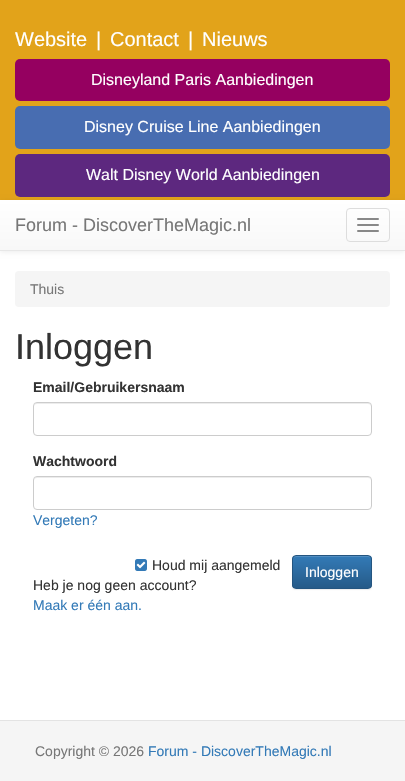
void draw(SkCanvas* canvas) {
    SkPaint paint;
    paint.setAntiAlias(true);
    auto face = [&](const char* family, int weight, float size, bool italic = false) {
        SkFontStyle style(weight, SkFontStyle::kNormal_Width,
            italic ? SkFontStyle::kItalic_Slant : SkFontStyle::kUpright_Slant);
        SkFont result(fontMgr->matchFamilyStyle(family, style), size);
        result.setSubpixel(true);
        return result;
    };
    auto write = [&](const char* s, float x, float y, const SkFont& font, SkColor color) {
        SkPaint ink(SkColor4f::FromColor(color));
        ink.setAntiAlias(true);
        canvas->drawString(s, x, y, font, ink);
    };
    auto block = [&](float x, float y, float w, float h, SkColor color) {
        SkPaint ink(SkColor4f::FromColor(color));
        ink.setAntiAlias(true);
        canvas->drawRect(SkRect::MakeXYWH(x, y, w, h), ink);
    };
    auto card = [&](float x, float y, float w, float h, float radius, SkColor color) {
        SkPaint ink(SkColor4f::FromColor(color));
        ink.setAntiAlias(true);
        canvas->drawRoundRect(SkRect::MakeXYWH(x, y, w, h), radius, radius, ink);
    };
    auto paste = [&](const char* path, float x, float y, float w, float h) {
        auto image = SkImages::DeferredFromEncodedData(SkData::MakeFromFileName(path));
        canvas->drawImageRect(image, SkRect::MakeXYWH(x, y, w, h), SkSamplingOptions());
    };
    canvas->clear(SK_ColorWHITE);
    block(0, 0, 405, 200, SkColorSetRGB(226, 163, 26));
    auto kFont1 = face("Liberation Sans", 400, 20);
    write("Website", 15, 46, kFont1, SK_ColorWHITE);
    write("|", 96, 46, kFont1, SK_ColorWHITE);
    write("Contact", 110, 46, kFont1, SK_ColorWHITE);
    write("|", 188, 46, kFont1, SK_ColorWHITE);
    write("Nieuws", 202, 46, kFont1, SK_ColorWHITE);
    card(15, 59, 375, 42, 5, SkColorSetRGB(149, 0, 96));
    auto kFont2 = face("Liberation Sans", 400, 16);
    write("Disneyland Paris Aanbiedingen", 91, 85, kFont2, SK_ColorWHITE);
    card(15, 106, 375, 43, 5, SkColorSetRGB(72, 109, 177));
    write("Disney Cruise Line Aanbiedingen", 84, 132, kFont2, SK_ColorWHITE);
    card(15, 154, 375, 43, 5, SkColorSetRGB(93, 40, 127));
    write("Walt Disney World Aanbiedingen", 86, 180, kFont2, SK_ColorWHITE);
    paint.setColor(SkColorSetARGB(18, 0, 0, 0));
    paint.setMaskFilter(SkMaskFilter::MakeBlur(kNormal_SkBlurStyle, 2.5f));
    canvas->drawRect(SkRect::MakeXYWH(0, 201, 405, 51), paint);
    paint.setMaskFilter(nullptr);
    {
        const SkColor colors[] = {SK_ColorWHITE, SkColorSetRGB(248, 248, 248)};
        const float stops[] = {0, 1};
        const SkPoint ends[] = {{203, 200}, {203, 250}};
        paint.setShader(SkGradientShader::MakeLinear(ends, colors, stops, 2, SkTileMode::kClamp));
        paint.setAlpha(255);
    }
    canvas->drawRect(SkRect::MakeXYWH(0, 200, 405, 50), paint);
    block(0, 250, 405, 1, SkColorSetRGB(231, 231, 231));
    auto kFont3 = face("Liberation Sans", 400, 18);
    write("Forum - DiscoverTheMagic.nl", 15, 231, kFont3, SkColorSetRGB(119, 119, 119));
    paint.setStyle(SkPaint::kStroke_Style);
    paint.setStrokeWidth(1);
    paint.setShader(nullptr);
    paint.setColor(SkColorSetRGB(221, 221, 221));
    canvas->drawRoundRect(SkRect::MakeXYWH(346.5f, 208.5f, 43, 33), 3.5f, 3.5f, paint);
    card(357, 218, 22, 2, 1, SkColorSetRGB(136, 136, 136));
    card(357, 224, 22, 2, 1, SkColorSetRGB(136, 136, 136));
    card(357, 230, 22, 2, 1, SkColorSetRGB(136, 136, 136));
    card(15, 271, 375, 36, 4, SkColorSetRGB(245, 245, 245));
    auto kFont4 = face("Liberation Sans", 400, 14);
    write("Thuis", 30, 294, kFont4, SkColorSetRGB(119, 119, 119));
    auto kFont5 = face("Liberation Sans", 400, 36);
    write("Inloggen", 15, 359, kFont5, SkColorSetRGB(51, 51, 51));
    auto kFont6 = face("Liberation Sans", 700, 14);
    write("Email/Gebruikersnaam", 33, 392, kFont6, SkColorSetRGB(51, 51, 51));
    paint.setStyle(SkPaint::kFill_Style);
    paint.setColor(SkColorSetRGB(236, 236, 236));
    canvas->drawPath(SkPathBuilder().moveTo(37, 404).lineTo(368, 404).cubicTo(370, 404, 371, 405, 371, 407).cubicTo(371, 405, 370, 403, 368, 403).lineTo(37, 403).cubicTo(35, 403, 34, 405, 34, 407).cubicTo(34, 405, 35, 404, 37, 404).close().detach(), paint);
    paint.setStyle(SkPaint::kStroke_Style);
    paint.setColor(SkColorSetRGB(204, 204, 204));
    canvas->drawRoundRect(SkRect::MakeXYWH(33.5f, 402.5f, 338, 33), 3.5f, 3.5f, paint);
    write("Wachtwoord", 33, 466, kFont6, SkColorSetRGB(51, 51, 51));
    paint.setStyle(SkPaint::kFill_Style);
    paint.setColor(SkColorSetRGB(236, 236, 236));
    canvas->drawPath(SkPathBuilder().moveTo(37, 478).lineTo(368, 478).cubicTo(370, 478, 371, 479, 371, 481).cubicTo(371, 479, 370, 477, 368, 477).lineTo(37, 477).cubicTo(35, 477, 34, 479, 34, 481).cubicTo(34, 479, 35, 478, 37, 478).close().detach(), paint);
    paint.setStyle(SkPaint::kStroke_Style);
    paint.setColor(SkColorSetRGB(204, 204, 204));
    canvas->drawRoundRect(SkRect::MakeXYWH(33.5f, 476.5f, 338, 33), 3.5f, 3.5f, paint);
    write("Vergeten?", 33, 525, kFont4, SkColorSetRGB(51, 122, 183));
    paste("pic1.png", 135, 559, 12, 12);
    write("Houd mij aangemeld", 152, 570, kFont4, SkColorSetRGB(51, 51, 51));
    paint.setStyle(SkPaint::kFill_Style);
    paint.setColor(SkColorSetARGB(18, 0, 0, 0));
    paint.setMaskFilter(SkMaskFilter::MakeBlur(kNormal_SkBlurStyle, 0.5f));
    canvas->drawRoundRect(SkRect::MakeXYWH(292, 556, 80, 34), 4, 4, paint);
    paint.setMaskFilter(nullptr);
    canvas->save();
    canvas->clipPath(SkPathBuilder().moveTo(296, 555).lineTo(368, 555).cubicTo(370, 555, 372, 557, 372, 559).lineTo(372, 585).cubicTo(372, 587, 370, 589, 368, 589).lineTo(296, 589).cubicTo(294, 589, 292, 587, 292, 585).lineTo(292, 559).cubicTo(292, 557, 294, 555, 296, 555).close().detach(), true);
    {
        const SkColor colors[] = {SkColorSetRGB(51, 122, 183), SkColorSetRGB(38, 90, 136)};
        const float stops[] = {0, 1};
        const SkPoint ends[] = {{332, 556}, {332, 588}};
        paint.setShader(SkGradientShader::MakeLinear(ends, colors, stops, 2, SkTileMode::kClamp));
        paint.setAlpha(255);
    }
    canvas->drawRect(SkRect::MakeXYWH(292, 556, 80, 32), paint);
    canvas->restore();
    paint.setShader(nullptr);
    paint.setColor(SkColorSetRGB(82, 142, 193));
    canvas->drawPath(SkPathBuilder().moveTo(296, 557).lineTo(368, 557).cubicTo(370, 557, 371, 558, 371, 560).cubicTo(371, 553, 360, 556, 356, 556).lineTo(308, 556).cubicTo(304, 556, 293, 553, 293, 560).cubicTo(293, 558, 294, 557, 296, 557).close().detach(), paint);
    paint.setStyle(SkPaint::kStroke_Style);
    paint.setColor(SkColorSetRGB(36, 85, 128));
    canvas->drawRoundRect(SkRect::MakeXYWH(292.5f, 555.5f, 79, 33), 3.5f, 3.5f, paint);
    write("Inloggen", 305, 577, kFont4, SK_ColorWHITE);
    write("Heb je nog geen account?", 33, 590, kFont4, SkColorSetRGB(51, 51, 51));
    write("Maak er één aan.", 33, 610, kFont4, SkColorSetRGB(51, 122, 183));
    block(0, 721, 405, 60, SkColorSetRGB(245, 245, 245));
    block(0, 720, 405, 1, SkColorSetRGB(227, 227, 227));
    write("Copyright © 2026", 35, 756, kFont4, SkColorSetRGB(119, 119, 119));
    write("Forum - DiscoverTheMagic.nl", 148, 756, kFont4, SkColorSetRGB(51, 122, 183));
}
